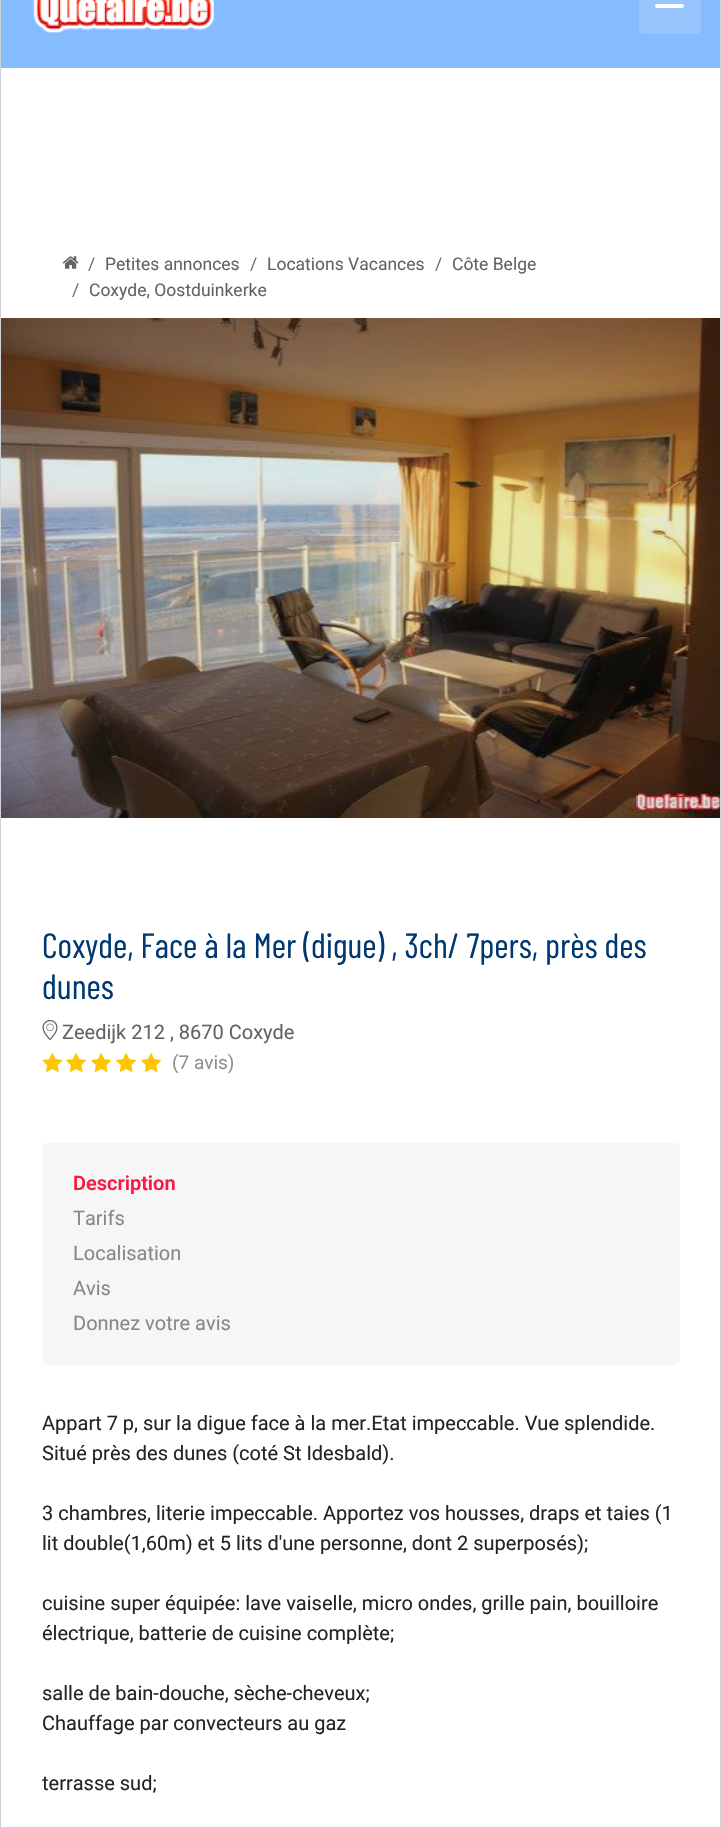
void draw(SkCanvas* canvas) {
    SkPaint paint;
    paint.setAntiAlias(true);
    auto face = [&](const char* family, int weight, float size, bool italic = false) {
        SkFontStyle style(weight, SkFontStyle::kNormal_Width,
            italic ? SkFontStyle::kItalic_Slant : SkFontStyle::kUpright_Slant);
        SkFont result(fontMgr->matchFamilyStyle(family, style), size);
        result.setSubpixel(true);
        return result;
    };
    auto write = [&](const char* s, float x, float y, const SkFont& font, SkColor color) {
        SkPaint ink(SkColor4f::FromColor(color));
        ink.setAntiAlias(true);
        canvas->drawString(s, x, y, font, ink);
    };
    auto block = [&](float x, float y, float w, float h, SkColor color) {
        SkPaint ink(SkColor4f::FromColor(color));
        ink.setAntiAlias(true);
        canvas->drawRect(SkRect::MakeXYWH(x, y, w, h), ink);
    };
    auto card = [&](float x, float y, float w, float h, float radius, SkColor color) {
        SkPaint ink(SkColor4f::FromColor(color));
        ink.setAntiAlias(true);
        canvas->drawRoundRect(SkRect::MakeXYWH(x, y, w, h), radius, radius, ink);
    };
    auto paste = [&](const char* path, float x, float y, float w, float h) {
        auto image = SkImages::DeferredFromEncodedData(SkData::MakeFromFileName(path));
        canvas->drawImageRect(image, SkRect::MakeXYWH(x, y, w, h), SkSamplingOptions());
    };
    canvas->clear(SK_ColorWHITE);
    paint.setStyle(SkPaint::kStroke_Style);
    paint.setStrokeWidth(1);
    paint.setColor(SkColorSetRGB(206, 212, 218));
    canvas->drawRect(SkRect::MakeXYWH(0.5f, -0.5f, 720, 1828), paint);
    block(1, 0, 719, 68, SkColorSetRGB(133, 188, 254));
    paste("pic1.png", 32, 0, 182, 34);
    card(639, -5, 62, 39, 5, SkColorSetRGB(151, 198, 254));
    card(655, 4, 29, 4, 2, SK_ColorWHITE);
    paste("pic2.png", 62, 256, 17, 13);
    auto kFont1 = face("Roboto", 400, 17.5f);
    write("/", 88, 270, kFont1, SkColorSetRGB(108, 117, 125));
    write("Petites annonces", 105, 270, kFont1, SkColorSetRGB(98, 99, 100));
    write("/", 250, 270, kFont1, SkColorSetRGB(108, 117, 125));
    write("Locations Vacances", 267, 270, kFont1, SkColorSetRGB(98, 99, 100));
    write("/", 435, 270, kFont1, SkColorSetRGB(108, 117, 125));
    write("Côte Belge", 452, 270, kFont1, SkColorSetRGB(98, 99, 100));
    write("/", 72, 296, kFont1, SkColorSetRGB(108, 117, 125));
    write("Coxyde, Oostduinkerke", 89, 296, kFont1, SkColorSetRGB(98, 99, 100));
    paste("pic3.png", 1, 318, 719, 500);
    auto kFont2 = face("Barlow Condensed", 400, 35);
    write("Coxyde, Face à la Mer (digue) , 3ch/ 7pers, près des", 42, 958, kFont2, SkColorSetRGB(0, 56, 114));
    write("dunes", 42, 999, kFont2, SkColorSetRGB(0, 56, 114));
    paste("pic4.png", 42, 1020, 16, 20);
    auto kFont3 = face("Roboto", 400, 20);
    write("Zeedijk 212 , 8670 Coxyde", 62, 1039, kFont3, SkColorSetRGB(98, 99, 100));
    paste("pic5.png", 42, 1053, 21, 19);
    paste("pic6.png", 66, 1053, 20, 19);
    paste("pic6.png", 91, 1053, 20, 19);
    paste("pic6.png", 116, 1053, 20, 19);
    paste("pic6.png", 141, 1053, 20, 19);
    auto kFont4 = face("Roboto", 400, 19);
    write("(7 avis)", 172, 1069, kFont4, SkColorSetRGB(144, 144, 144));
    card(43, 1143, 637, 222, 5, SkColorSetRGB(246, 246, 246));
    auto kFont5 = face("Roboto", 600, 20);
    write("Description", 73, 1190, kFont5, SkColorSetRGB(249, 25, 66));
    write("Tarifs", 73, 1225, kFont3, SkColorSetRGB(136, 136, 136));
    write("Localisation", 73, 1260, kFont3, SkColorSetRGB(136, 136, 136));
    write("Avis", 73, 1295, kFont3, SkColorSetRGB(136, 136, 136));
    write("Donnez votre avis", 73, 1330, kFont3, SkColorSetRGB(136, 136, 136));
    write("Appart 7 p, sur la digue face à la mer.Etat impeccable. Vue splendide.", 42, 1430, kFont3, SkColorSetRGB(33, 37, 41));
    write("Situé près des dunes (coté St Idesbald).", 42, 1460, kFont3, SkColorSetRGB(33, 37, 41));
    write("3 chambres, literie impeccable. Apportez vos housses, draps et taies (1", 42, 1520, kFont3, SkColorSetRGB(33, 37, 41));
    write("lit double(1,60m) et 5 lits d'une personne, dont 2 superposés);", 42, 1550, kFont3, SkColorSetRGB(33, 37, 41));
    write("cuisine super équipée: lave vaiselle, micro ondes, grille pain, bouilloire", 42, 1610, kFont3, SkColorSetRGB(33, 37, 41));
    write("électrique, batterie de cuisine complète;", 42, 1640, kFont3, SkColorSetRGB(33, 37, 41));
    write("salle de bain-douche, sèche-cheveux;", 42, 1700, kFont3, SkColorSetRGB(33, 37, 41));
    write("Chauffage par convecteurs au gaz", 42, 1730, kFont3, SkColorSetRGB(33, 37, 41));
    write("terrasse sud;", 42, 1790, kFont3, SkColorSetRGB(33, 37, 41));
}
